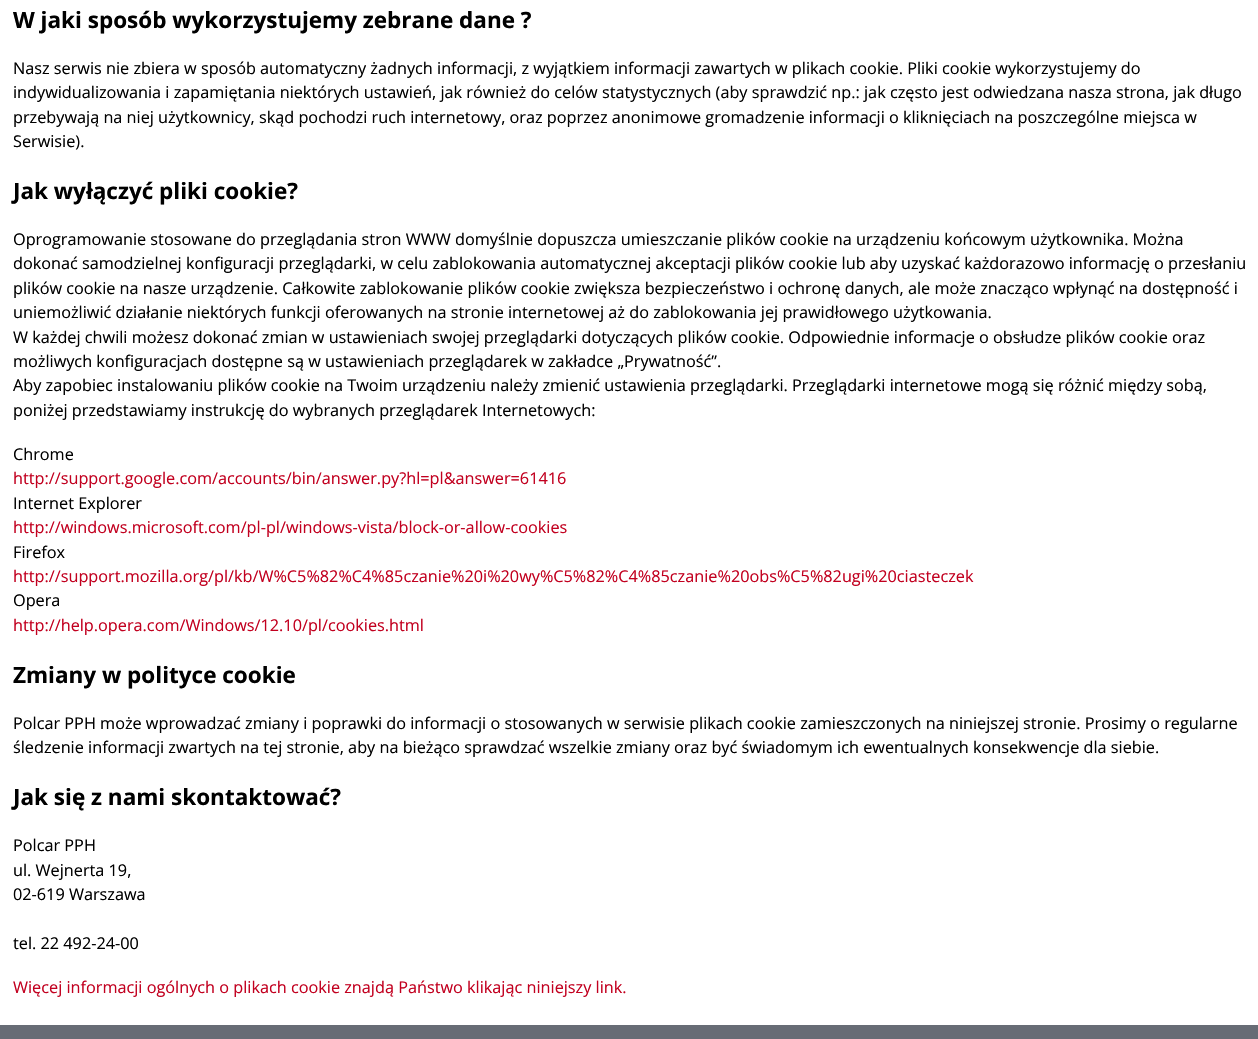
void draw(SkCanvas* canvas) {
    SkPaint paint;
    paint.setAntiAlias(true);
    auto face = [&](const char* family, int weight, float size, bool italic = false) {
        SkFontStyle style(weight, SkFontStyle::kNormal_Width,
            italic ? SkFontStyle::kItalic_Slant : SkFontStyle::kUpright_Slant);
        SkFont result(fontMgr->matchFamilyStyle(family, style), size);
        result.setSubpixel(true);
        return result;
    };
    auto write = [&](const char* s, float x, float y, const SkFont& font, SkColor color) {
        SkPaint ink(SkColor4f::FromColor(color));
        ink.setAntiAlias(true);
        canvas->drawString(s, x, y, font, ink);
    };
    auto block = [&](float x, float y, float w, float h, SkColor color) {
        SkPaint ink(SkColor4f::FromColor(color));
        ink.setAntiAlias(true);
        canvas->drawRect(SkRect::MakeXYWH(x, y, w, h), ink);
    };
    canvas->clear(SK_ColorWHITE);
    auto kFont1 = face("Open Sans", 700, 22.5f);
    write("W jaki sposób wykorzystujemy zebrane dane ?", 13, 28, kFont1, SK_ColorBLACK);
    auto kFont2 = face("Open Sans", 400, 16.25f);
    write("Nasz serwis nie zbiera w sposób automatyczny żadnych informacji, z wyjątkiem informacji zawartych w plikach cookie. Pliki cookie wykorzystujemy do", 13, 74, kFont2, SK_ColorBLACK);
    write("indywidualizowania i zapamiętania niektórych ustawień, jak również do celów statystycznych (aby sprawdzić np.: jak często jest odwiedzana nasza strona, jak długo", 13, 98, kFont2, SK_ColorBLACK);
    write("przebywają na niej użytkownicy, skąd pochodzi ruch internetowy, oraz poprzez anonimowe gromadzenie informacji o kliknięciach na poszczególne miejsca w", 13, 123, kFont2, SK_ColorBLACK);
    write("Serwisie).", 13, 147, kFont2, SK_ColorBLACK);
    write("Jak wyłączyć pliki cookie?", 13, 199, kFont1, SK_ColorBLACK);
    write("Oprogramowanie stosowane do przeglądania stron WWW domyślnie dopuszcza umieszczanie plików cookie na urządzeniu końcowym użytkownika. Można", 13, 245, kFont2, SK_ColorBLACK);
    write("dokonać samodzielnej konfiguracji przeglądarki, w celu zablokowania automatycznej akceptacji plików cookie lub aby uzyskać każdorazowo informację o przesłaniu", 13, 269, kFont2, SK_ColorBLACK);
    write("plików cookie na nasze urządzenie. Całkowite zablokowanie plików cookie zwiększa bezpieczeństwo i ochronę danych, ale może znacząco wpłynąć na dostępność i", 13, 294, kFont2, SK_ColorBLACK);
    write("uniemożliwić działanie niektórych funkcji oferowanych na stronie internetowej aż do zablokowania jej prawidłowego użytkowania.", 13, 318, kFont2, SK_ColorBLACK);
    write("W każdej chwili możesz dokonać zmian w ustawieniach swojej przeglądarki dotyczących plików cookie. Odpowiednie informacje o obsłudze plików cookie oraz", 13, 343, kFont2, SK_ColorBLACK);
    write("możliwych konfiguracjach dostępne są w ustawieniach przeglądarek w zakładce „Prywatność”.", 13, 367, kFont2, SK_ColorBLACK);
    write("Aby zapobiec instalowaniu plików cookie na Twoim urządzeniu należy zmienić ustawienia przeglądarki. Przeglądarki internetowe mogą się różnić między sobą,", 13, 391, kFont2, SK_ColorBLACK);
    write("poniżej przedstawiamy instrukcję do wybranych przeglądarek Internetowych:", 13, 416, kFont2, SK_ColorBLACK);
    write("Chrome", 13, 460, kFont2, SK_ColorBLACK);
    write("http://support.google.com/accounts/bin/answer.py?hl=pl&answer=61416", 13, 484, kFont2, SkColorSetRGB(194, 0, 31));
    write("Internet Explorer", 13, 509, kFont2, SK_ColorBLACK);
    write("http://windows.microsoft.com/pl-pl/windows-vista/block-or-allow-cookies", 13, 533, kFont2, SkColorSetRGB(194, 0, 31));
    write("Firefox", 13, 558, kFont2, SK_ColorBLACK);
    write("http://support.mozilla.org/pl/kb/W%C5%82%C4%85czanie%20i%20wy%C5%82%C4%85czanie%20obs%C5%82ugi%20ciasteczek", 13, 582, kFont2, SkColorSetRGB(194, 0, 31));
    write("Opera", 13, 606, kFont2, SK_ColorBLACK);
    write("http://help.opera.com/Windows/12.10/pl/cookies.html", 13, 631, kFont2, SkColorSetRGB(194, 0, 31));
    write("Zmiany w polityce cookie", 13, 683, kFont1, SK_ColorBLACK);
    write("Polcar PPH może wprowadzać zmiany i poprawki do informacji o stosowanych w serwisie plikach cookie zamieszczonych na niniejszej stronie. Prosimy o regularne", 13, 729, kFont2, SK_ColorBLACK);
    write("śledzenie informacji zwartych na tej stronie, aby na bieżąco sprawdzać wszelkie zmiany oraz być świadomym ich ewentualnych konsekwencje dla siebie.", 13, 753, kFont2, SK_ColorBLACK);
    write("Jak się z nami skontaktować?", 13, 805, kFont1, SK_ColorBLACK);
    write("Polcar PPH", 13, 851, kFont2, SK_ColorBLACK);
    write("ul. Wejnerta 19,", 13, 876, kFont2, SK_ColorBLACK);
    write("02-619 Warszawa", 13, 900, kFont2, SK_ColorBLACK);
    write("tel. 22 492-24-00", 13, 949, kFont2, SK_ColorBLACK);
    write("Więcej informacji ogólnych o plikach cookie znajdą Państwo klikając niniejszy link.", 13, 993, kFont2, SkColorSetRGB(194, 0, 31));
    block(0, 1025, 1258, 14, SkColorSetRGB(103, 108, 117));
}
